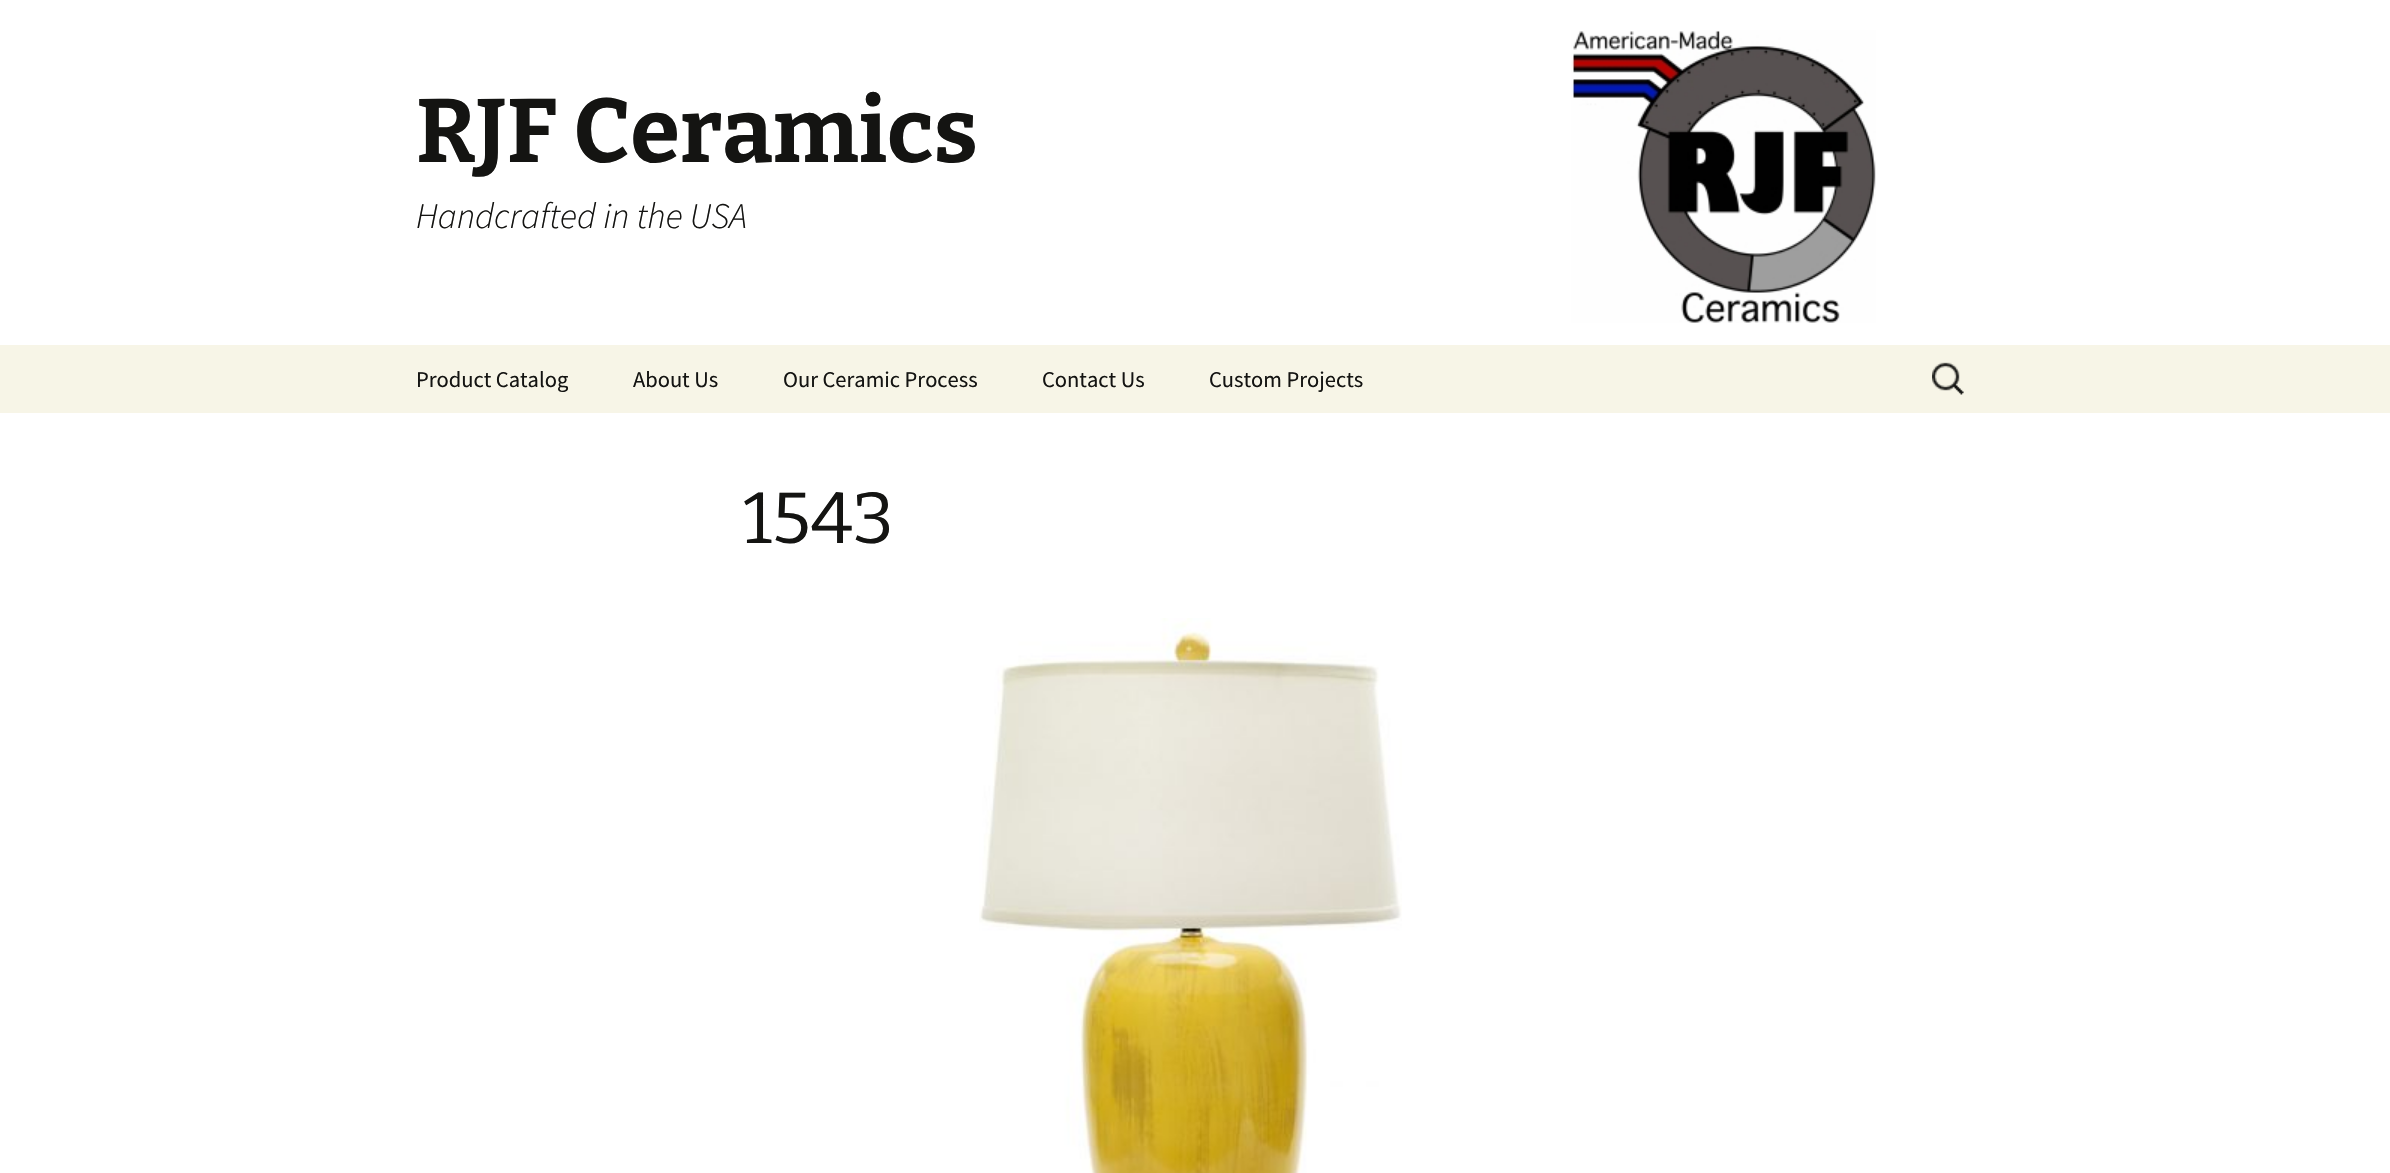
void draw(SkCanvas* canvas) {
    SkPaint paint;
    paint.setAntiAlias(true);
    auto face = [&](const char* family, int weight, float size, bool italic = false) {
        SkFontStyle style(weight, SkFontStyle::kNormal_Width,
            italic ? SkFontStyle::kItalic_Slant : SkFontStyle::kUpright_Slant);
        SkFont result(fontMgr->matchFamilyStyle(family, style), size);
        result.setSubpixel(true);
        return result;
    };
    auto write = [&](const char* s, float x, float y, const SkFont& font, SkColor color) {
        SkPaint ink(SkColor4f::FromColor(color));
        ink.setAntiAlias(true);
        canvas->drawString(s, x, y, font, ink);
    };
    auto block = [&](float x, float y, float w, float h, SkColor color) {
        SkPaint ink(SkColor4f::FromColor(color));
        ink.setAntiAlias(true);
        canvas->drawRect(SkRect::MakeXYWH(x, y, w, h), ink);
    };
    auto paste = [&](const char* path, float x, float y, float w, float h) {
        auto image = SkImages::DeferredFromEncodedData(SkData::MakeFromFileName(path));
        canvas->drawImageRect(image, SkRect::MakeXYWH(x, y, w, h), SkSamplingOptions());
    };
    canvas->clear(SK_ColorWHITE);
    paste("pic1.png", 1571, 30, 305, 293);
    auto kFont1 = face("Bitter", 100, 90);
    write("RJF Ceramics", 416, 162, kFont1, SkColorSetRGB(20, 20, 18));
    auto kFont2 = face("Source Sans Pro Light", 300, 36, true);
    write("Handcrafted in the USA", 416, 228, kFont2, SkColorSetRGB(20, 20, 18));
    block(0, 345, 2390, 68, SkColorSetRGB(247, 245, 231));
    auto kFont3 = face("Source Sans Pro", 400, 22.5f);
    write("Product Catalog", 416, 387, kFont3, SkColorSetRGB(20, 20, 18));
    write("About Us", 633, 387, kFont3, SkColorSetRGB(20, 20, 18));
    write("Our Ceramic Process", 783, 387, kFont3, SkColorSetRGB(20, 20, 18));
    write("Contact Us", 1042, 387, kFont3, SkColorSetRGB(20, 20, 18));
    write("Custom Projects", 1209, 387, kFont3, SkColorSetRGB(20, 20, 18));
    paste("pic2.png", 1932, 362, 32, 33);
    auto kFont4 = face("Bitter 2", 100, 72);
    write("1543", 743, 543, kFont4, SkColorSetRGB(20, 20, 18));
    paste("pic3.png", 979, 618, 423, 555);
}
